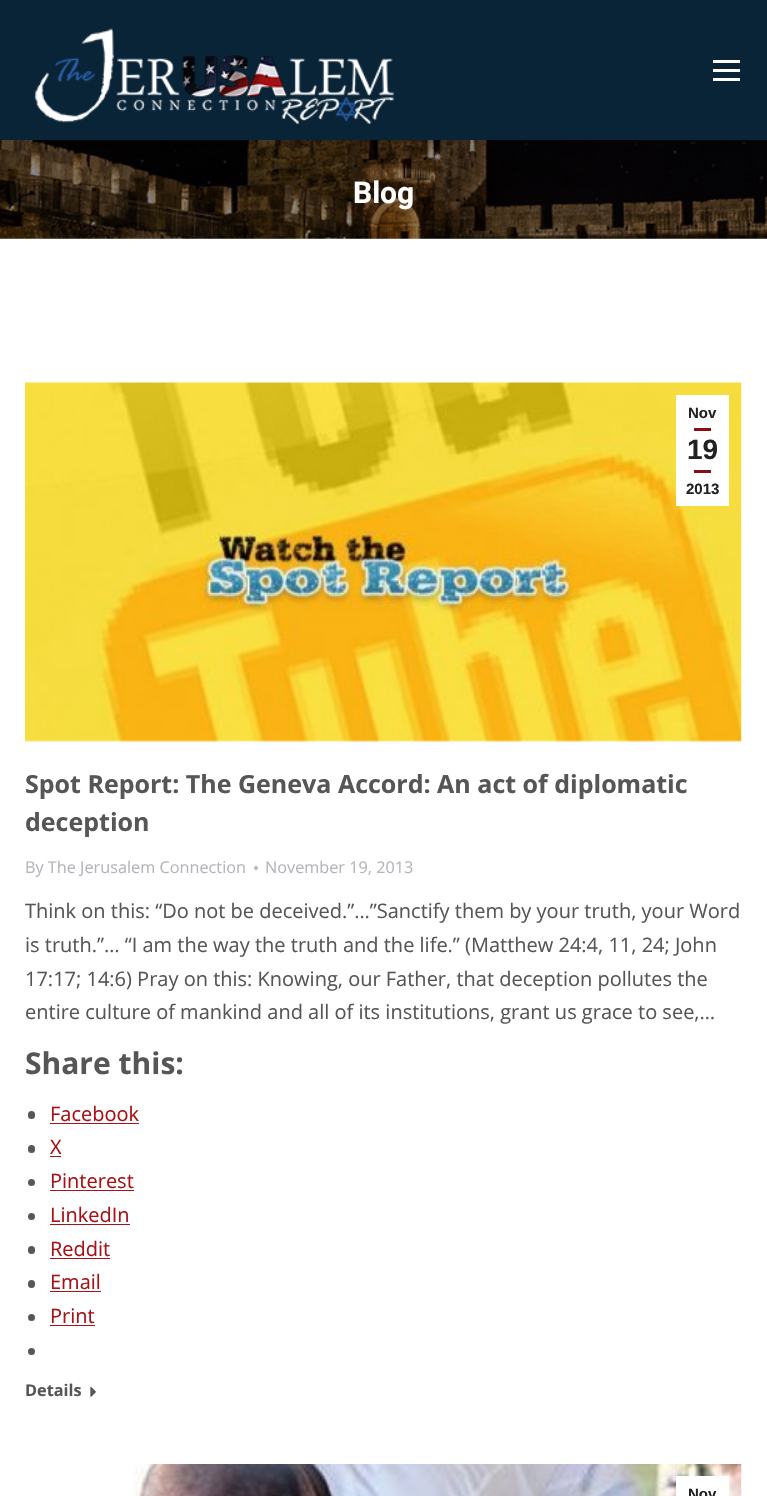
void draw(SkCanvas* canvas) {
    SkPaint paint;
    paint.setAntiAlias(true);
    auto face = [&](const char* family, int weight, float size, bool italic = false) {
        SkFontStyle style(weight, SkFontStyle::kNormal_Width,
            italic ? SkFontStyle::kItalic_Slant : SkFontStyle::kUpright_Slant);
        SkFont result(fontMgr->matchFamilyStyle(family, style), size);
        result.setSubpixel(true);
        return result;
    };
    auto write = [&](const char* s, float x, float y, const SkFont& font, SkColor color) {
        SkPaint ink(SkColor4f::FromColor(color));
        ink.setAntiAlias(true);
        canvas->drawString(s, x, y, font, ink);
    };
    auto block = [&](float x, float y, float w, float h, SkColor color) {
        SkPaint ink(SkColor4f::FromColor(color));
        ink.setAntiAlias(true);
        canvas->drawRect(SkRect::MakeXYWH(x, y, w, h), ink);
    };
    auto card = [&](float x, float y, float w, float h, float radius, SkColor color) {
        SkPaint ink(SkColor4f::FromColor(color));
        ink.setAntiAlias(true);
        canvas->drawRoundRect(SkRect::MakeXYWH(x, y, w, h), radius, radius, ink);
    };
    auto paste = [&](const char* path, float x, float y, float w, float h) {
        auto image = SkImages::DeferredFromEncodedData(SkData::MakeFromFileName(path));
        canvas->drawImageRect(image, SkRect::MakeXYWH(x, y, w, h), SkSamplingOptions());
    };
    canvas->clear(SK_ColorWHITE);
    paste("pic2.png", 0, 140, 767, 99);
    paint.setColor(SkColorSetARGB(18, 0, 0, 0));
    paint.setMaskFilter(SkMaskFilter::MakeBlur(kNormal_SkBlurStyle, 9.5f));
    canvas->drawRect(SkRect::MakeXYWH(-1, -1, 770, 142), paint);
    paint.setMaskFilter(nullptr);
    block(0, 0, 767, 140, SkColorSetRGB(9, 36, 55));
    paste("pic1.png", 34, 28, 360, 96);
    block(713, 60, 27, 3, SK_ColorWHITE);
    block(713, 69, 27, 3, SK_ColorWHITE);
    block(713, 78, 27, 3, SK_ColorWHITE);
    auto kFont1 = face("Roboto", 700, 30);
    write("Blog", 353, 203, kFont1, SK_ColorWHITE);
    paste("pic3.png", 25, 382, 717, 360);
    block(676, 395, 53, 111, SK_ColorWHITE);
    auto kFont2 = face("Liberation Sans", 700, 15);
    write("Nov", 688, 418, kFont2, SkColorSetRGB(34, 34, 34));
    block(694, 428, 17, 3, SkColorSetRGB(136, 15, 17));
    auto kFont3 = face("Liberation Sans", 700, 28);
    write("19", 687, 459, kFont3, SkColorSetRGB(34, 34, 34));
    block(694, 470, 17, 3, SkColorSetRGB(136, 15, 17));
    write("2013", 686, 494, kFont2, SkColorSetRGB(34, 34, 34));
    auto kFont4 = face("Open Sans", 700, 25);
    write("Spot Report: The Geneva Accord: An act of diplomatic", 25, 793, kFont4, SkColorSetRGB(86, 86, 86));
    write("deception", 25, 831, kFont4, SkColorSetRGB(86, 86, 86));
    auto kFont5 = face("Open Sans", 400, 16.25f);
    write("By The Jerusalem Connection", 25, 873, kFont5, SkColorSetRGB(180, 181, 187));
    paint.setColor(SkColorSetRGB(180, 181, 187));
    canvas->drawCircle(256, 868, 2, paint);
    write("November 19, 2013", 265, 873, kFont5, SkColorSetRGB(180, 181, 187));
    auto kFont6 = face("Open Sans", 400, 20);
    write("Think on this: “Do not be deceived.”…”Sanctify them by your truth, your Word", 25, 918, kFont6, SkColorSetRGB(86, 86, 86));
    write("is truth.”… “I am the way the truth and the life.” (Matthew 24:4, 11, 24; John", 25, 952, kFont6, SkColorSetRGB(86, 86, 86));
    write("17:17; 14:6) Pray on this: Knowing, our Father, that deception pollutes the", 25, 986, kFont6, SkColorSetRGB(86, 86, 86));
    write("entire culture of mankind and all of its institutions, grant us grace to see,…", 25, 1019, kFont6, SkColorSetRGB(86, 86, 86));
    auto kFont7 = face("Open Sans", 700, 30);
    write("Share this:", 25, 1074, kFont7, SkColorSetRGB(86, 86, 86));
    card(28, 1111, 7, 8, 3.5f, SkColorSetRGB(87, 87, 91));
    write("Facebook", 50, 1121, kFont6, SkColorSetRGB(166, 18, 21));
    block(50, 1123, 89, 1, SkColorSetRGB(166, 18, 21));
    card(28, 1145, 7, 8, 3.5f, SkColorSetRGB(87, 87, 91));
    write("X", 50, 1154, kFont6, SkColorSetRGB(166, 18, 21));
    block(50, 1156, 11, 1, SkColorSetRGB(166, 18, 21));
    paint.setColor(SkColorSetRGB(87, 87, 91));
    canvas->drawCircle(31.5f, 1182.5f, 3.5f, paint);
    write("Pinterest", 50, 1188, kFont6, SkColorSetRGB(166, 18, 21));
    block(50, 1190, 84, 1, SkColorSetRGB(166, 18, 21));
    canvas->drawCircle(31.5f, 1216.5f, 3.5f, paint);
    write("LinkedIn", 50, 1222, kFont6, SkColorSetRGB(166, 18, 21));
    block(50, 1224, 80, 1, SkColorSetRGB(166, 18, 21));
    card(28, 1246, 7, 8, 3.5f, SkColorSetRGB(87, 87, 91));
    write("Reddit", 50, 1256, kFont6, SkColorSetRGB(166, 18, 21));
    block(50, 1258, 60, 1, SkColorSetRGB(166, 18, 21));
    card(28, 1280, 7, 8, 3.5f, SkColorSetRGB(87, 87, 91));
    write("Email", 50, 1289, kFont6, SkColorSetRGB(166, 18, 21));
    block(50, 1291, 51, 1, SkColorSetRGB(166, 18, 21));
    canvas->drawCircle(31.5f, 1317.5f, 3.5f, paint);
    write("Print", 50, 1323, kFont6, SkColorSetRGB(166, 18, 21));
    block(50, 1325, 45, 1, SkColorSetRGB(166, 18, 21));
    canvas->drawCircle(31.5f, 1351.5f, 3.5f, paint);
    auto kFont8 = face("Open Sans", 700, 16.25f);
    write("Details", 25, 1396, kFont8, SkColorSetRGB(86, 86, 86));
    paste("pic4.png", 90, 1386, 6, 11);
    paste("pic5.png", 133, 1464, 609, 32);
    block(676, 1476, 53, 20, SK_ColorWHITE);
    write("Nov", 688, 1499, kFont2, SkColorSetRGB(34, 34, 34));
}
